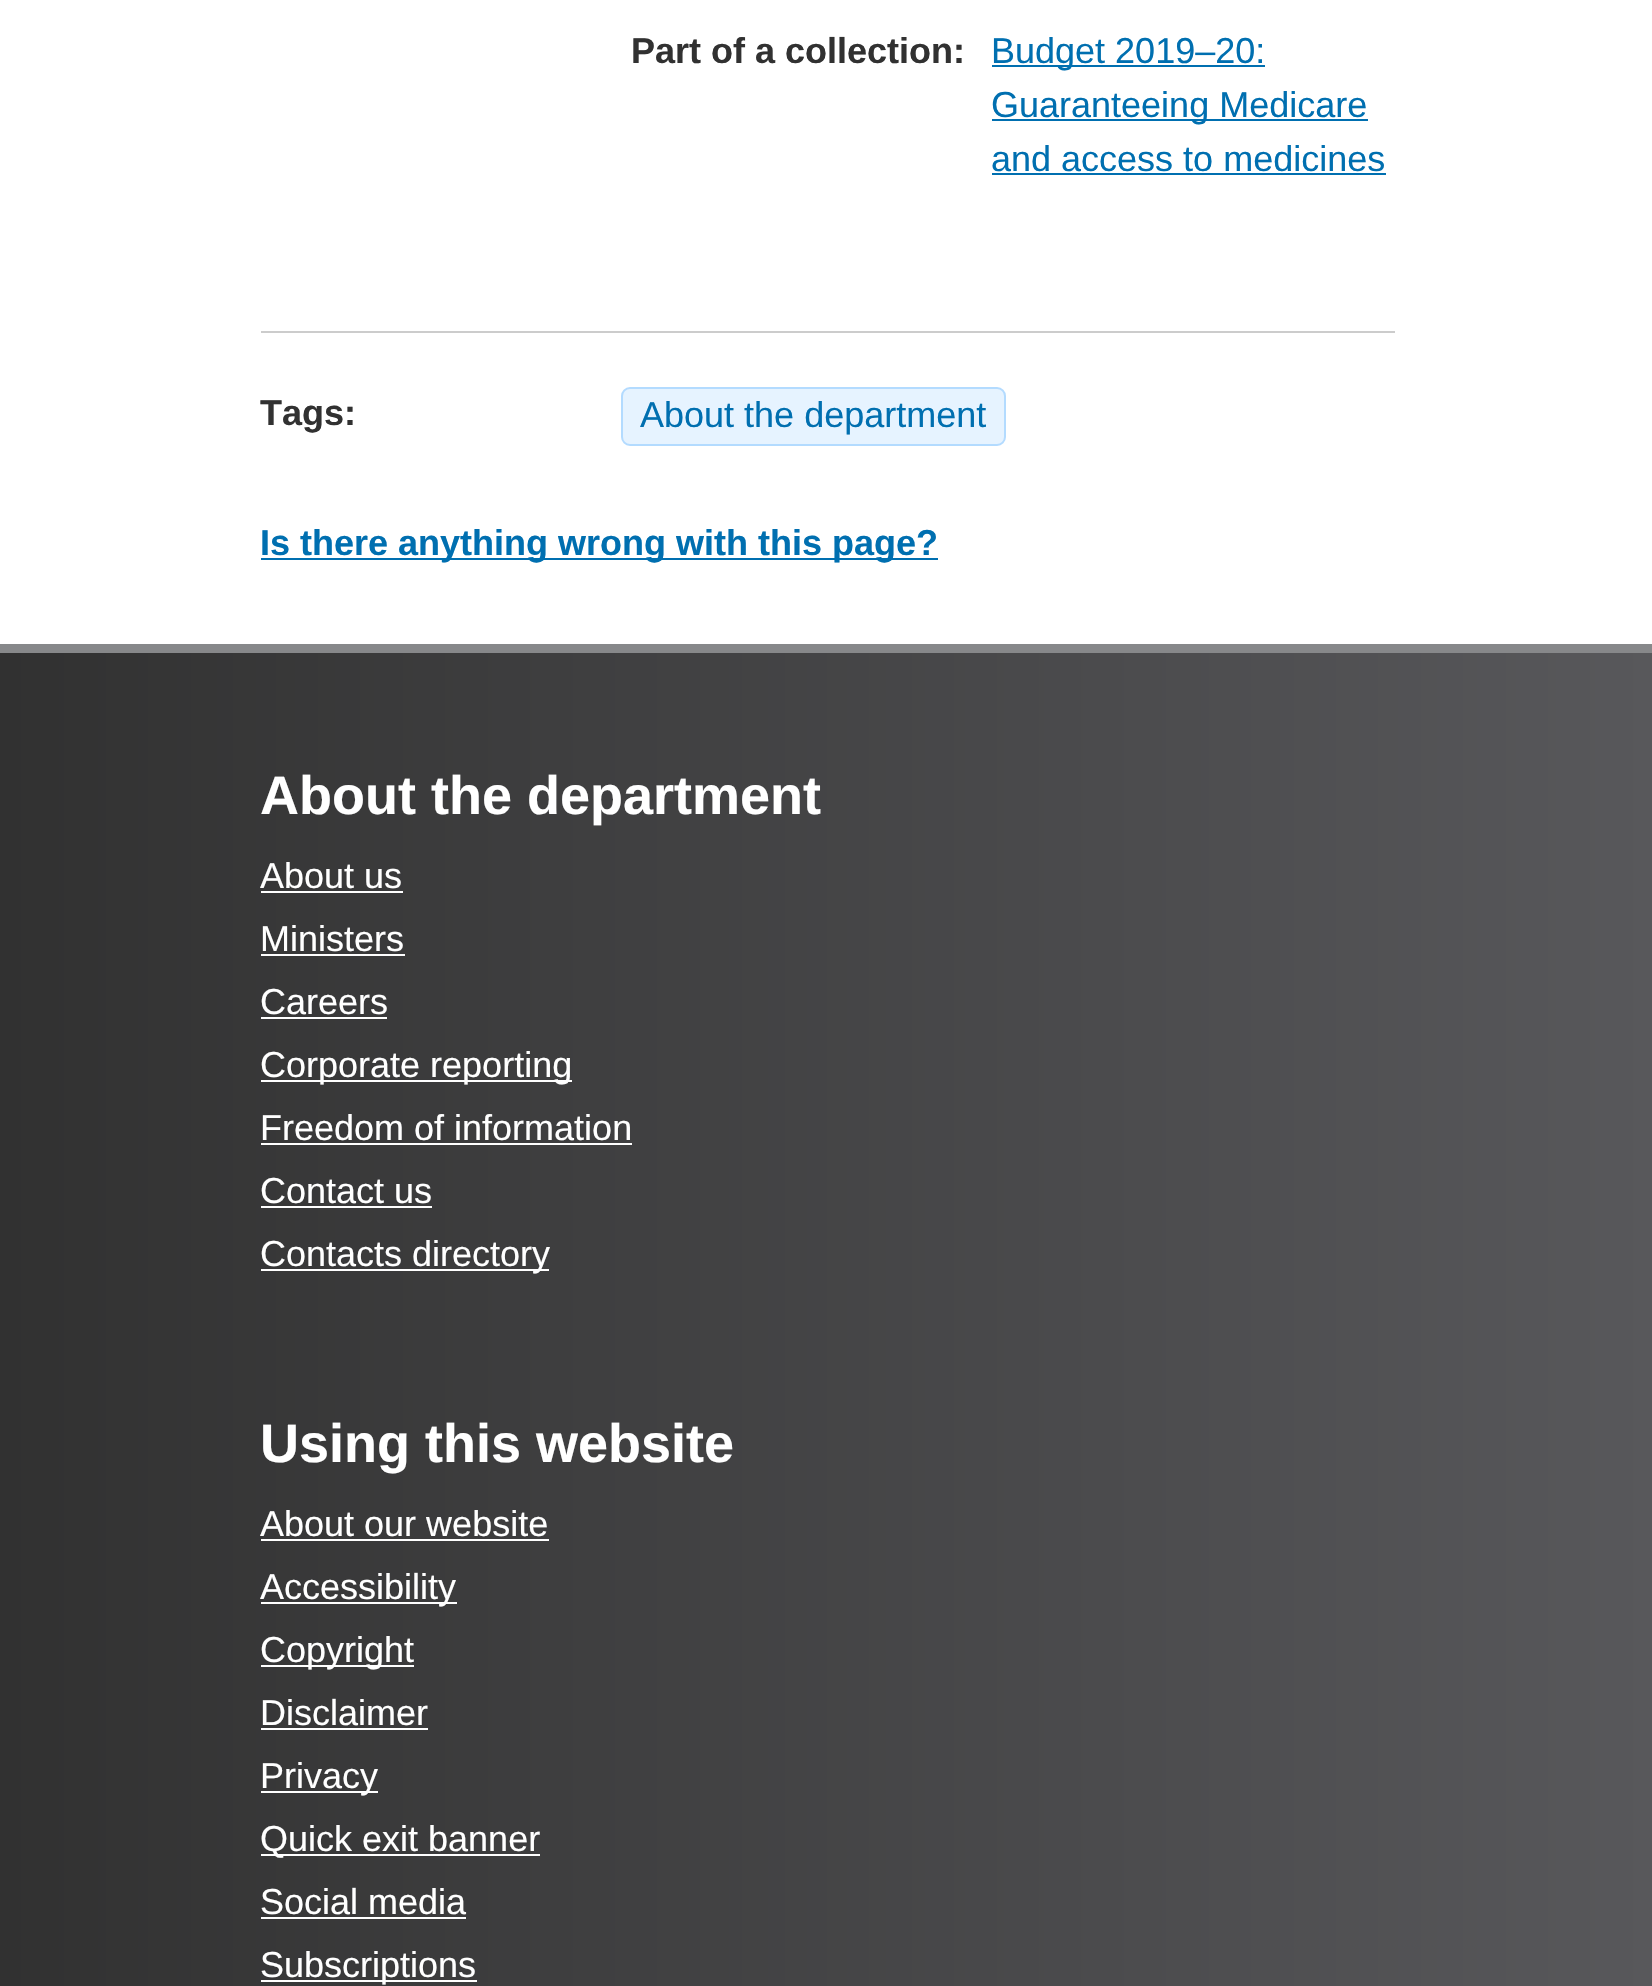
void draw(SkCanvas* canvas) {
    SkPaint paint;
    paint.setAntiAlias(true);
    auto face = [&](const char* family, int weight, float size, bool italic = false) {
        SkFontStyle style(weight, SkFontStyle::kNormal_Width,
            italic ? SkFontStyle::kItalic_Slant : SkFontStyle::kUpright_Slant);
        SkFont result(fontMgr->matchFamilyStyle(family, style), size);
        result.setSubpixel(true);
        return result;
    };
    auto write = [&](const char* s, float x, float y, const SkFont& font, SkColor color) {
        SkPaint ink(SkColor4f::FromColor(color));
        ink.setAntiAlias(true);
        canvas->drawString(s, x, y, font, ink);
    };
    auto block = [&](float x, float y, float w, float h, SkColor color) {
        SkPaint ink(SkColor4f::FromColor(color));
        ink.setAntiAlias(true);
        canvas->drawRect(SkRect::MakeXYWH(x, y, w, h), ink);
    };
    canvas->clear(SK_ColorWHITE);
    auto kFont1 = face("Liberation Sans", 700, 36);
    write("Part of a collection:", 631, 63, kFont1, SkColorSetRGB(49, 49, 49));
    block(992, 65, 273, 2, SkColorSetRGB(0, 111, 176));
    auto kFont2 = face("Liberation Sans", 400, 36);
    write("Budget 2019–20:", 991, 63, kFont2, SkColorSetRGB(0, 111, 176));
    block(992, 119, 376, 2, SkColorSetRGB(0, 111, 176));
    write("Guaranteeing Medicare", 991, 117, kFont2, SkColorSetRGB(0, 111, 176));
    write("and access to medicines", 991, 171, kFont2, SkColorSetRGB(0, 111, 176));
    block(992, 173, 394, 2, SkColorSetRGB(0, 111, 176));
    block(261, 331, 1134, 2, SkColorSetRGB(204, 204, 204));
    write("Tags:", 260, 425, kFont1, SkColorSetRGB(49, 49, 49));
    paint.setColor(SkColorSetRGB(230, 243, 255));
    canvas->drawRoundRect(SkRect::MakeXYWH(622, 388, 383, 57), 8, 8, paint);
    paint.setStyle(SkPaint::kStroke_Style);
    paint.setStrokeWidth(2);
    paint.setColor(SkColorSetRGB(179, 219, 255));
    canvas->drawRoundRect(SkRect::MakeXYWH(622, 388, 383, 57), 8, 8, paint);
    write("About the department", 640, 427, kFont2, SkColorSetRGB(0, 111, 176));
    block(261, 558, 677, 2, SkColorSetRGB(0, 111, 176));
    write("Is there anything wrong with this page?", 260, 555, kFont1, SkColorSetRGB(0, 111, 176));
    paint.setStyle(SkPaint::kFill_Style);
    {
        const SkColor colors[] = {SkColorSetRGB(49, 49, 49), SkColorSetRGB(88, 88, 91)};
        const float stops[] = {0, 1};
        const SkPoint ends[] = {{0, 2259}, {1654, 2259}};
        paint.setShader(SkGradientShader::MakeLinear(ends, colors, stops, 2, SkTileMode::kClamp));
        paint.setAlpha(255);
    }
    canvas->drawRect(SkRect::MakeXYWH(0, 653, 1652, 1333), paint);
    block(0, 644, 1652, 9, SkColorSetRGB(135, 136, 138));
    auto kFont3 = face("Liberation Sans", 700, 54);
    write("About the department", 260, 814, kFont3, SK_ColorWHITE);
    write("About us", 260, 888, kFont2, SK_ColorWHITE);
    block(261, 891, 142, 2, SK_ColorWHITE);
    write("Ministers", 260, 951, kFont2, SK_ColorWHITE);
    block(261, 954, 144, 2, SK_ColorWHITE);
    write("Careers", 260, 1014, kFont2, SK_ColorWHITE);
    block(261, 1017, 126, 2, SK_ColorWHITE);
    block(261, 1080, 311, 2, SK_ColorWHITE);
    write("Corporate reporting", 260, 1077, kFont2, SK_ColorWHITE);
    write("Freedom of information", 260, 1140, kFont2, SK_ColorWHITE);
    block(261, 1143, 371, 2, SK_ColorWHITE);
    write("Contact us", 260, 1203, kFont2, SK_ColorWHITE);
    block(261, 1206, 171, 2, SK_ColorWHITE);
    block(261, 1269, 288, 2, SK_ColorWHITE);
    write("Contacts directory", 260, 1266, kFont2, SK_ColorWHITE);
    write("Using this website", 260, 1462, kFont3, SK_ColorWHITE);
    write("About our website", 260, 1536, kFont2, SK_ColorWHITE);
    block(261, 1539, 288, 2, SK_ColorWHITE);
    block(261, 1602, 196, 2, SK_ColorWHITE);
    write("Accessibility", 260, 1599, kFont2, SK_ColorWHITE);
    block(261, 1665, 153, 2, SK_ColorWHITE);
    write("Copyright", 260, 1662, kFont2, SK_ColorWHITE);
    write("Disclaimer", 260, 1725, kFont2, SK_ColorWHITE);
    block(261, 1728, 167, 2, SK_ColorWHITE);
    block(261, 1791, 117, 2, SK_ColorWHITE);
    write("Privacy", 260, 1788, kFont2, SK_ColorWHITE);
    block(261, 1854, 279, 2, SK_ColorWHITE);
    write("Quick exit banner", 260, 1851, kFont2, SK_ColorWHITE);
    write("Social media", 260, 1914, kFont2, SK_ColorWHITE);
    block(261, 1917, 205, 2, SK_ColorWHITE);
    block(261, 1980, 216, 2, SK_ColorWHITE);
    write("Subscriptions", 260, 1977, kFont2, SK_ColorWHITE);
}
